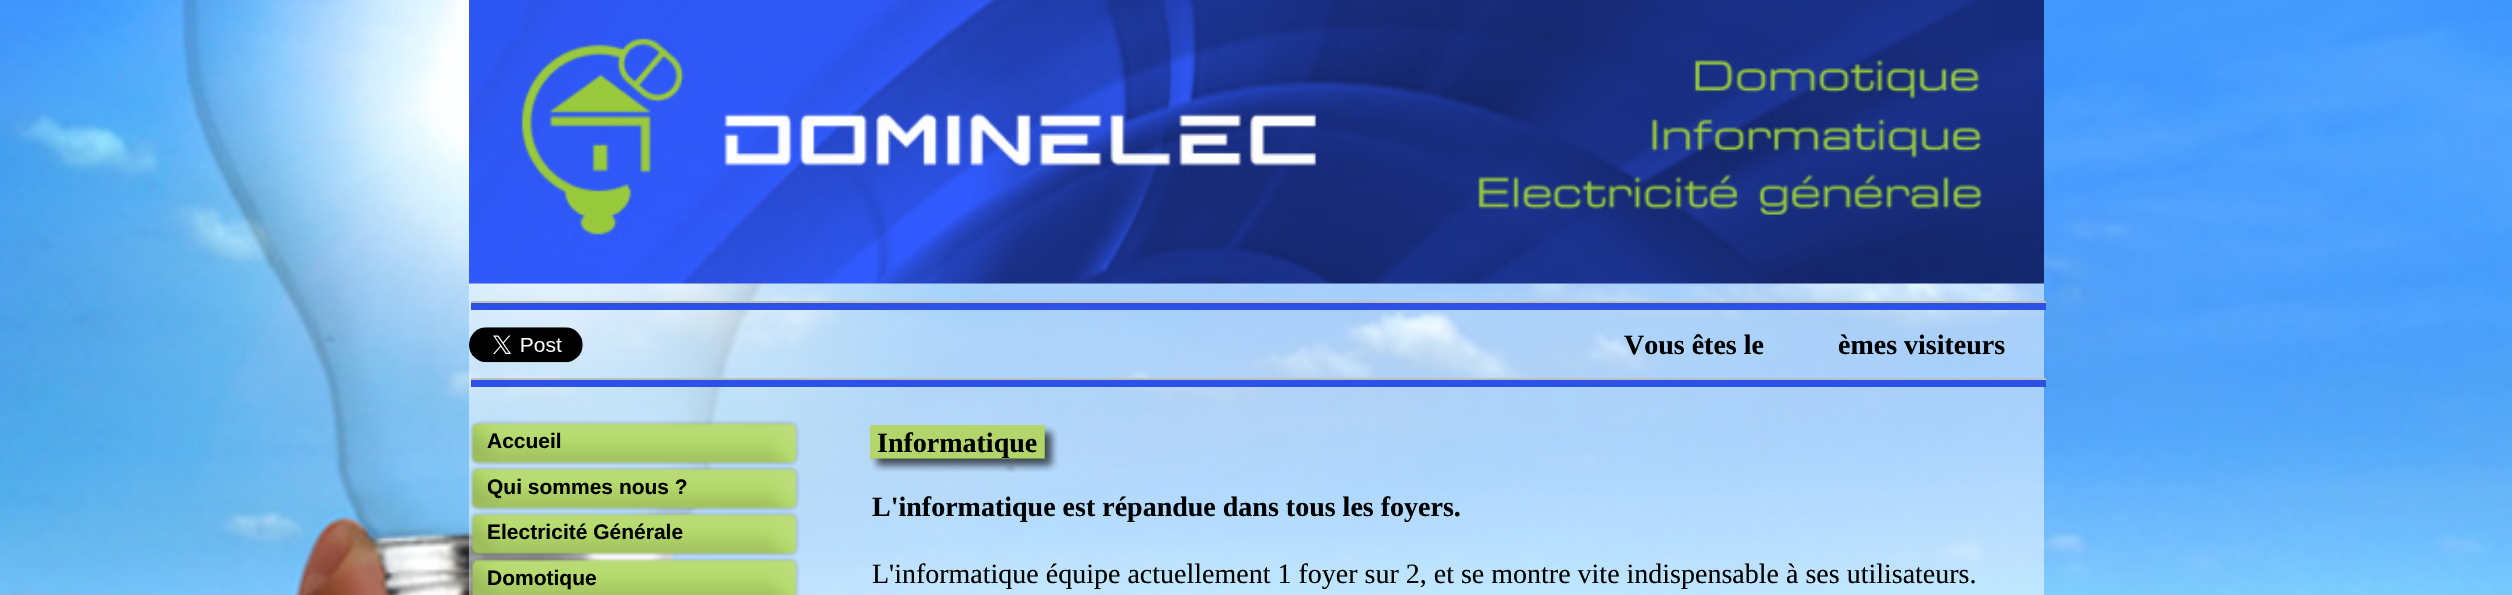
void draw(SkCanvas* canvas) {
    SkPaint paint;
    paint.setAntiAlias(true);
    auto face = [&](const char* family, int weight, float size, bool italic = false) {
        SkFontStyle style(weight, SkFontStyle::kNormal_Width,
            italic ? SkFontStyle::kItalic_Slant : SkFontStyle::kUpright_Slant);
        SkFont result(fontMgr->matchFamilyStyle(family, style), size);
        result.setSubpixel(true);
        return result;
    };
    auto write = [&](const char* s, float x, float y, const SkFont& font, SkColor color) {
        SkPaint ink(SkColor4f::FromColor(color));
        ink.setAntiAlias(true);
        canvas->drawString(s, x, y, font, ink);
    };
    auto block = [&](float x, float y, float w, float h, SkColor color) {
        SkPaint ink(SkColor4f::FromColor(color));
        ink.setAntiAlias(true);
        canvas->drawRect(SkRect::MakeXYWH(x, y, w, h), ink);
    };
    auto paste = [&](const char* path, float x, float y, float w, float h) {
        auto image = SkImages::DeferredFromEncodedData(SkData::MakeFromFileName(path));
        canvas->drawImageRect(image, SkRect::MakeXYWH(x, y, w, h), SkSamplingOptions());
    };
    canvas->clear(SK_ColorWHITE);
    paste("pic1.png", 0, 0, 2512, 595);
    block(469, 283, 1575, 312, SkColorSetARGB(128, 255, 255, 255));
    paste("pic2.png", 469, 0, 1575, 284);
    block(471, 0, 51, 40, SkColorSetRGB(45, 85, 242));
    block(1992, 0, 52, 40, SkColorSetRGB(21, 44, 124));
    block(471, 303, 1575, 7, SkColorSetRGB(44, 81, 231));
    block(471, 301, 1575, 2, SkColorSetRGB(191, 191, 191));
    paste("pic3.png", 469, 327, 114, 36);
    auto kFont1 = face("Liberation Serif", 700, 28);
    write("Vous êtes le", 1624, 354, kFont1, SK_ColorBLACK);
    write("èmes visiteurs", 1838, 354, kFont1, SK_ColorBLACK);
    block(471, 380, 1575, 7, SkColorSetRGB(44, 81, 231));
    block(471, 378, 1575, 2, SkColorSetRGB(191, 191, 191));
    paste("pic4.png", 469, 420, 331, 46);
    auto kFont2 = face("Liberation Sans", 700, 21);
    write("Accueil", 487, 448, kFont2, SK_ColorBLACK);
    paste("pic5.png", 469, 466, 331, 45);
    write("Qui sommes nous ?", 487, 494, kFont2, SK_ColorBLACK);
    paste("pic6.png", 469, 511, 331, 46);
    write("Electricité Générale", 487, 539, kFont2, SK_ColorBLACK);
    paste("pic7.png", 469, 557, 331, 38);
    write("Domotique", 487, 585, kFont2, SK_ColorBLACK);
    block(870, 425, 175, 34, SkColorSetRGB(178, 214, 107));
    write("Informatique", 877, 452, kFont1, SK_ColorBLACK);
    paste("pic8.png", 1044, 426, 14, 33);
    paste("pic9.png", 871, 458, 174, 14);
    paste("pic10.png", 1044, 458, 14, 14);
    write("L'informatique est répandue dans tous les foyers.", 872, 516, kFont1, SK_ColorBLACK);
    auto kFont3 = face("Liberation Serif", 400, 28);
    write("L'informatique équipe actuellement 1 foyer sur 2, et se montre vite indispensable à ses utilisateurs.", 872, 583, kFont3, SK_ColorBLACK);
}
